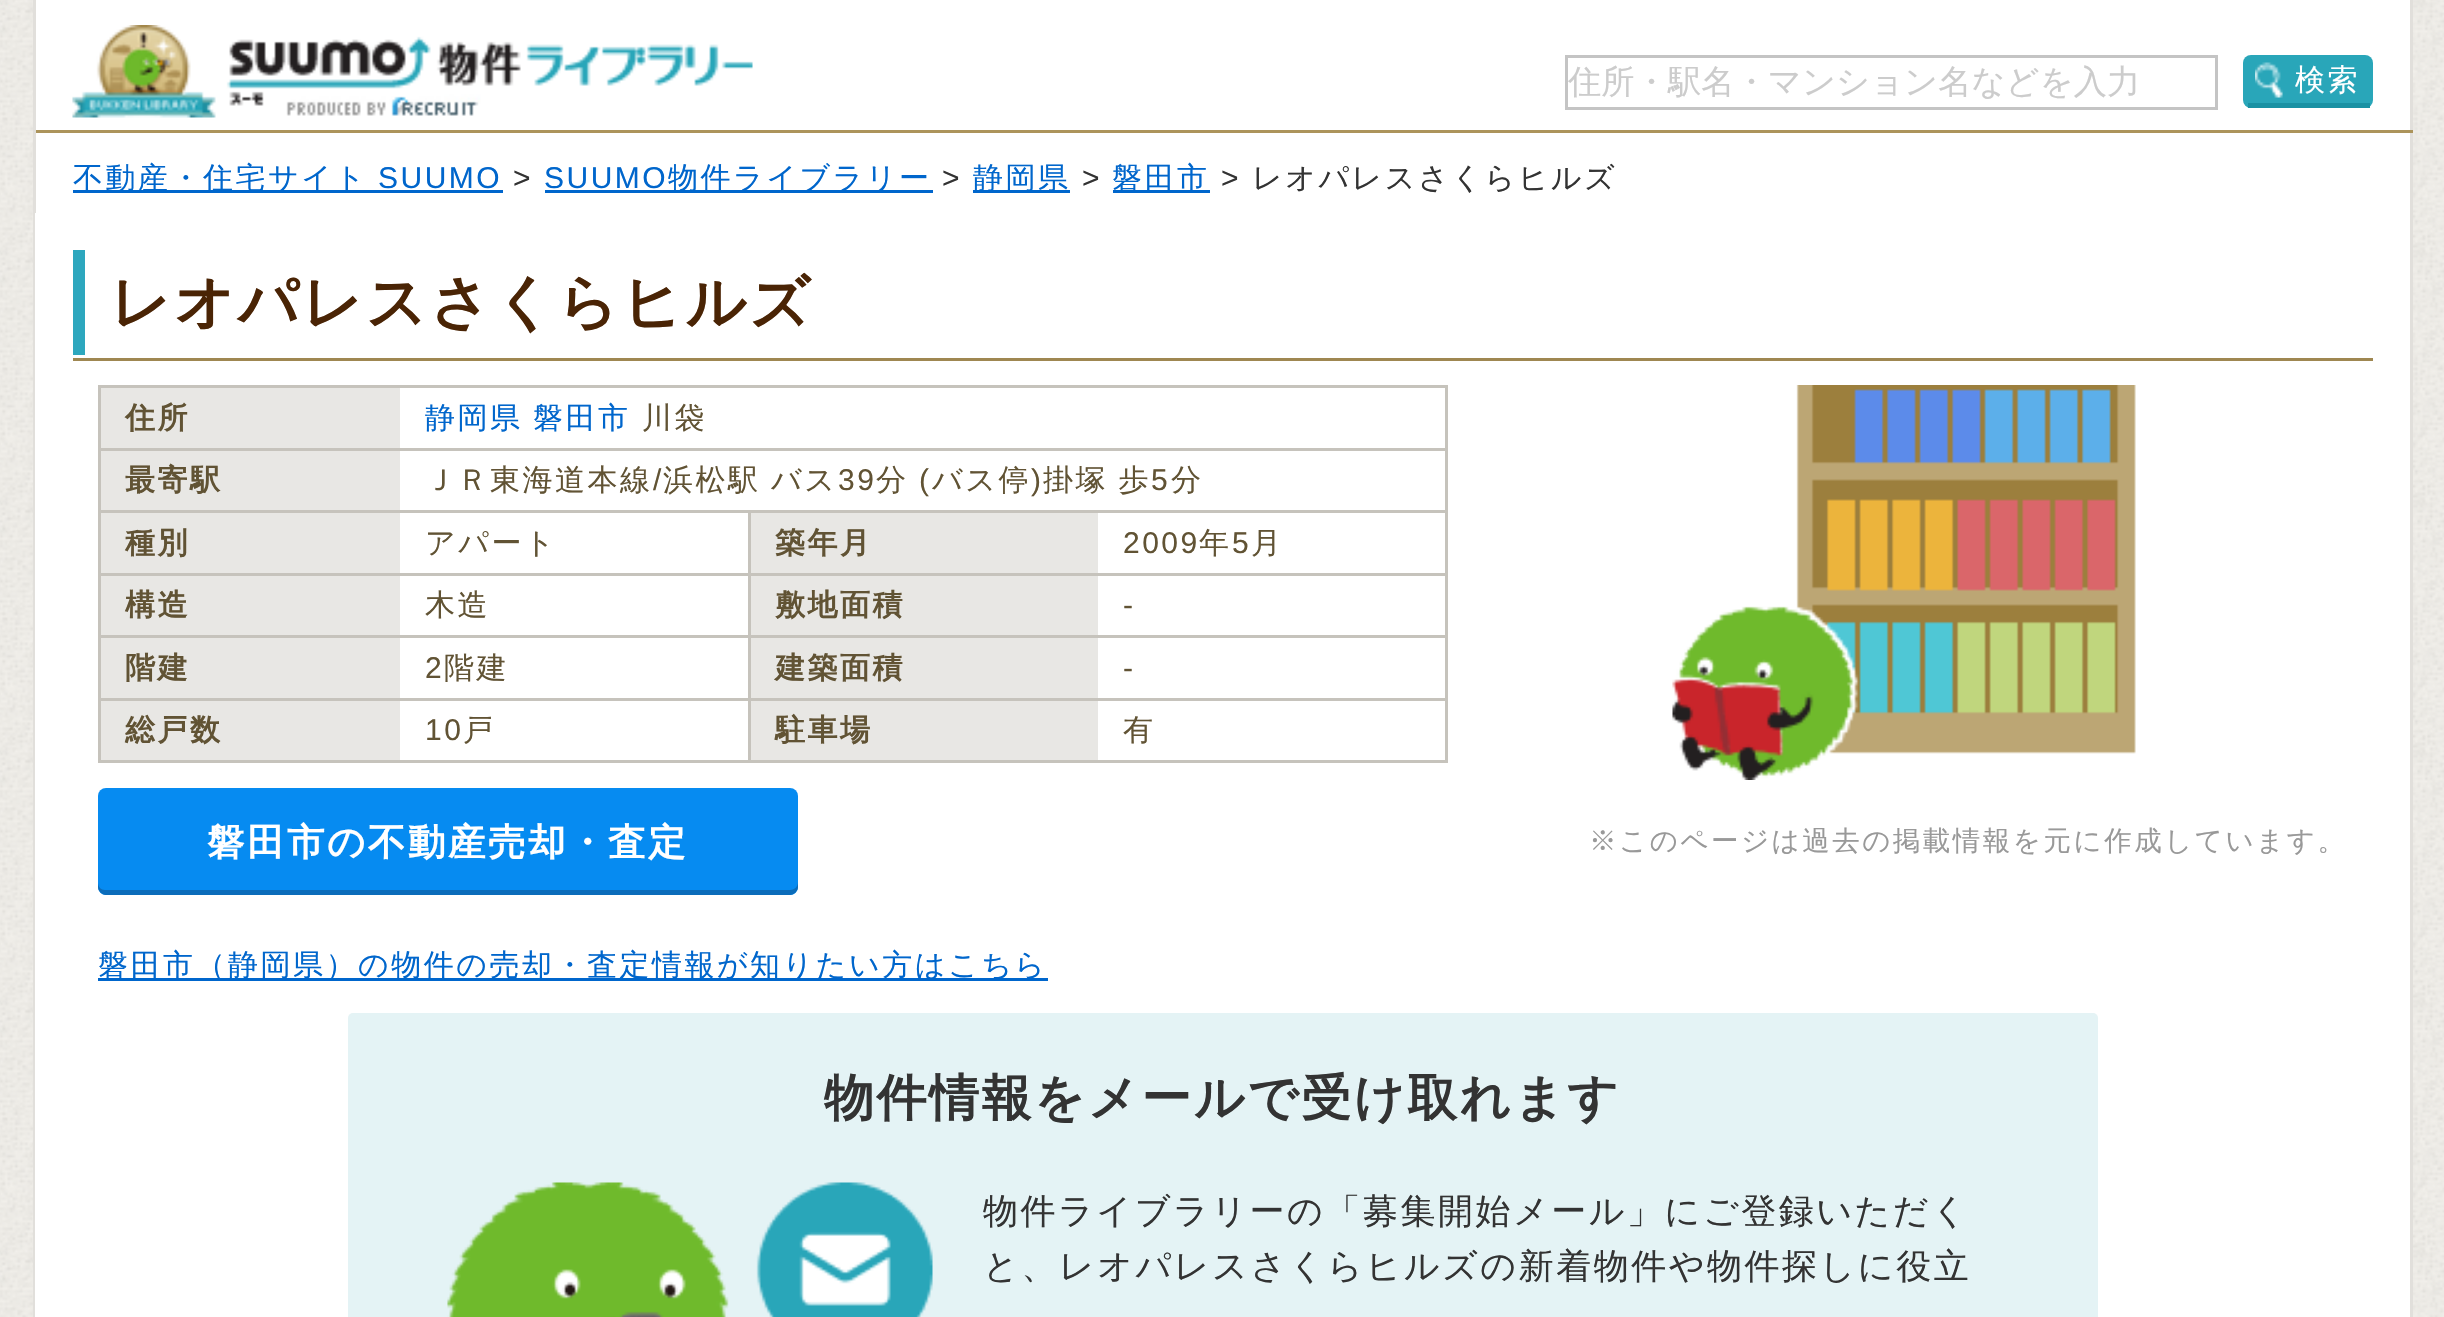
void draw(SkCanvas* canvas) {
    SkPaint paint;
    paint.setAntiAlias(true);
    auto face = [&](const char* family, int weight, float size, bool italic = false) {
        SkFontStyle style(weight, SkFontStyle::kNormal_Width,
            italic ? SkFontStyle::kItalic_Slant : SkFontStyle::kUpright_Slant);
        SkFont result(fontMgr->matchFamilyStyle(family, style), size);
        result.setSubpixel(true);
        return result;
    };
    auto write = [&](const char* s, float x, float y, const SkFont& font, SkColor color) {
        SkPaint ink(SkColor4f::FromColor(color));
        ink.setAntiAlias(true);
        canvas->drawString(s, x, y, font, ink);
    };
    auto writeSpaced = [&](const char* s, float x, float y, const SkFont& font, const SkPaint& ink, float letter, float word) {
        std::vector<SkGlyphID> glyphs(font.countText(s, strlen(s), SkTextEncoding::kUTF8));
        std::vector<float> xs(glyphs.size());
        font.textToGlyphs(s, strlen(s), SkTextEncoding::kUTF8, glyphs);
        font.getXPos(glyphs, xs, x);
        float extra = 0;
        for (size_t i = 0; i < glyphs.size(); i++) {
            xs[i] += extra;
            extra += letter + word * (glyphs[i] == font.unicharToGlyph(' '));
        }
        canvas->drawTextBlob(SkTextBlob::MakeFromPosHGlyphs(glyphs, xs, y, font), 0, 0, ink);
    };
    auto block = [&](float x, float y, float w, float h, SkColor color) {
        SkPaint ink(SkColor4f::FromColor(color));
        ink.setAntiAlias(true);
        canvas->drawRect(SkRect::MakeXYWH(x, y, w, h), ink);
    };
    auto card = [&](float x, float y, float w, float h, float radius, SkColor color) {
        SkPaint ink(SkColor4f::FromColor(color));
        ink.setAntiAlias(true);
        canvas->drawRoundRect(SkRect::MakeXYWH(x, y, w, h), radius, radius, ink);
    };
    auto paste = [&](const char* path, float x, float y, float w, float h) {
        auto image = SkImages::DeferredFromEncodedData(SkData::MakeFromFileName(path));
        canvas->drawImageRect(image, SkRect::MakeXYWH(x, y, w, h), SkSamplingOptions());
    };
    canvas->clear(SK_ColorWHITE);
    paste("pic1.png", 0, 0, 2444, 1317);
    block(36, 0, 2374, 130, SK_ColorWHITE);
    block(2410, 0, 3, 1317, SkColorSetRGB(225, 223, 219));
    block(33, 130, 2380, 3, SkColorSetRGB(172, 148, 91));
    block(33, 0, 3, 213, SkColorSetRGB(225, 223, 219));
    paste("pic2.png", 72, 25, 681, 93);
    paint.setStyle(SkPaint::kStroke_Style);
    paint.setStrokeWidth(3);
    paint.setColor(SkColorSetRGB(196, 196, 196));
    canvas->drawRect(SkRect::MakeXYWH(1566.5f, 56.5f, 650, 52), paint);
    auto kFont1 = face("WenQuanYi Zen Hei", 500, 33.3f);
    write("住所・駅名・マンション名などを入力", 1568, 93, kFont1, SkColorSetRGB(204, 204, 204));
    card(2243, 55, 130, 53, 8, SkColorSetRGB(41, 166, 185));
    block(2248, 103, 122, 5, SkColorSetRGB(26, 145, 163));
    paste("pic3.png", 2255, 62, 28, 36);
    auto kFont2 = face("WenQuanYi Zen Hei", 500, 30);
    paint.setStyle(SkPaint::kFill_Style);
    paint.setColor(SK_ColorWHITE);
    writeSpaced("検索", 2295, 90, kFont2, paint, 2.5f, 0);
    block(36, 133, 2374, 80, SK_ColorWHITE);
    block(73, 190, 430, 3, SkColorSetRGB(0, 102, 204));
    paint.setColor(SkColorSetRGB(0, 102, 204));
    writeSpaced("不動産・住宅サイト", 73, 188, kFont2, paint, 2.5f, 0);
    auto kFont3 = face("Liberation Sans", 400, 30);
    writeSpaced("SUUMO", 378, 188, kFont3, paint, 2.5f, 0);
    paint.setColor(SkColorSetRGB(51, 51, 51));
    writeSpaced(">", 513, 188, kFont3, paint, 2.5f, 0);
    paint.setColor(SkColorSetRGB(0, 102, 204));
    writeSpaced("SUUMO", 544, 188, kFont3, paint, 2.5f, 0);
    block(545, 190, 388, 3, SkColorSetRGB(0, 102, 204));
    writeSpaced("物件ライブラリー", 668, 188, kFont2, paint, 2.5f, 0);
    paint.setColor(SkColorSetRGB(51, 51, 51));
    writeSpaced(">", 942, 188, kFont3, paint, 2.5f, 0);
    block(973, 190, 97, 3, SkColorSetRGB(0, 102, 204));
    paint.setColor(SkColorSetRGB(0, 102, 204));
    writeSpaced("静岡県", 973, 188, kFont2, paint, 2.5f, 0);
    paint.setColor(SkColorSetRGB(51, 51, 51));
    writeSpaced(">", 1082, 188, kFont3, paint, 2.5f, 0);
    block(1113, 190, 97, 3, SkColorSetRGB(0, 102, 204));
    paint.setColor(SkColorSetRGB(0, 102, 204));
    writeSpaced("磐田市", 1112, 188, kFont2, paint, 2.5f, 0);
    paint.setColor(SkColorSetRGB(51, 51, 51));
    writeSpaced(">", 1221, 188, kFont3, paint, 2.5f, 0);
    writeSpaced("レオパレスさくらヒルズ", 1252, 188, kFont2, paint, 2.5f, 0);
    block(33, 213, 2, 1104, SkColorSetRGB(225, 223, 219));
    block(35, 213, 2375, 1104, SK_ColorWHITE);
    block(73, 358, 2300, 3, SkColorSetRGB(159, 135, 81));
    block(73, 250, 12, 105, SkColorSetRGB(45, 167, 190));
    auto kFont4 = face("WenQuanYi Zen Hei", 700, 60);
    paint.setColor(SkColorSetRGB(74, 36, 5));
    writeSpaced("レオパレスさくらヒルズ", 110, 323, kFont4, paint, 2.5f, 0);
    block(98, 385, 1350, 3, SkColorSetRGB(198, 195, 188));
    block(1445, 385, 3, 378, SkColorSetRGB(198, 195, 188));
    block(98, 760, 1350, 3, SkColorSetRGB(198, 195, 188));
    block(98, 385, 3, 378, SkColorSetRGB(198, 195, 188));
    block(101, 388, 299, 60, SkColorSetRGB(232, 231, 228));
    auto kFont5 = face("WenQuanYi Zen Hei", 700, 30);
    paint.setColor(SkColorSetRGB(97, 83, 52));
    writeSpaced("住所", 125, 428, kFont5, paint, 2.5f, 0);
    paint.setColor(SkColorSetRGB(0, 102, 204));
    writeSpaced("静岡県", 425, 428, kFont2, paint, 2.5f, 0);
    writeSpaced("磐田市", 533, 428, kFont2, paint, 2.5f, 0);
    paint.setColor(SkColorSetRGB(97, 83, 52));
    writeSpaced("川袋", 642, 428, kFont2, paint, 2.5f, 0);
    block(101, 451, 299, 59, SkColorSetRGB(232, 231, 228));
    writeSpaced("最寄駅", 125, 490, kFont5, paint, 2.5f, 0);
    block(98, 448, 1350, 3, SkColorSetRGB(198, 195, 188));
    writeSpaced("ＪＲ東海道本線", 425, 490, kFont2, paint, 2.5f, 0);
    writeSpaced("/", 653, 490, kFont3, paint, 2.5f, 0);
    writeSpaced("浜松駅 バス", 663, 490, kFont2, paint, 2.5f, -1);
    writeSpaced("39", 838, 490, kFont3, paint, 2.5f, 0);
    writeSpaced("分", 876, 490, kFont2, paint, 2.5f, 0);
    writeSpaced("(", 919, 490, kFont3, paint, 2.5f, 0);
    writeSpaced("バス停", 932, 490, kFont2, paint, 2.5f, 0);
    writeSpaced(")", 1031, 490, kFont3, paint, 2.5f, 0);
    writeSpaced("掛塚 歩", 1043, 490, kFont2, paint, 2.5f, -1);
    writeSpaced("5", 1151, 490, kFont3, paint, 2.5f, 0);
    writeSpaced("分", 1171, 490, kFont2, paint, 2.5f, 0);
    block(101, 513, 299, 60, SkColorSetRGB(232, 231, 228));
    writeSpaced("種別", 125, 553, kFont5, paint, 2.5f, 0);
    block(748, 510, 700, 3, SkColorSetRGB(198, 195, 188));
    block(748, 573, 700, 3, SkColorSetRGB(198, 195, 188));
    block(748, 635, 700, 3, SkColorSetRGB(198, 195, 188));
    block(748, 698, 700, 3, SkColorSetRGB(198, 195, 188));
    block(748, 698, 3, 65, SkColorSetRGB(198, 195, 188));
    block(98, 698, 652, 3, SkColorSetRGB(198, 195, 188));
    block(748, 635, 3, 65, SkColorSetRGB(198, 195, 188));
    block(98, 635, 652, 3, SkColorSetRGB(198, 195, 188));
    block(748, 573, 3, 65, SkColorSetRGB(198, 195, 188));
    block(98, 573, 652, 3, SkColorSetRGB(198, 195, 188));
    block(748, 510, 3, 65, SkColorSetRGB(198, 195, 188));
    block(98, 510, 652, 3, SkColorSetRGB(198, 195, 188));
    writeSpaced("アパート", 425, 553, kFont2, paint, 2.5f, 0);
    block(751, 513, 347, 60, SkColorSetRGB(232, 231, 228));
    writeSpaced("築年月", 775, 553, kFont5, paint, 2.5f, 0);
    writeSpaced("2009", 1123, 553, kFont3, paint, 2.5f, 0);
    writeSpaced("年", 1199, 553, kFont2, paint, 2.5f, 0);
    writeSpaced("5", 1232, 553, kFont3, paint, 2.5f, 0);
    writeSpaced("月", 1251, 553, kFont2, paint, 2.5f, 0);
    block(101, 576, 299, 59, SkColorSetRGB(232, 231, 228));
    writeSpaced("構造", 125, 615, kFont5, paint, 2.5f, 0);
    writeSpaced("木造", 425, 615, kFont2, paint, 2.5f, 0);
    block(751, 576, 347, 59, SkColorSetRGB(232, 231, 228));
    writeSpaced("敷地面積", 775, 615, kFont5, paint, 2.5f, 0);
    writeSpaced("‐", 1123, 615, kFont3, paint, 2.5f, 0);
    block(101, 638, 299, 60, SkColorSetRGB(232, 231, 228));
    writeSpaced("階建", 125, 678, kFont5, paint, 2.5f, 0);
    writeSpaced("2", 425, 678, kFont3, paint, 2.5f, 0);
    writeSpaced("階建", 444, 678, kFont2, paint, 2.5f, 0);
    block(751, 638, 347, 60, SkColorSetRGB(232, 231, 228));
    writeSpaced("建築面積", 775, 678, kFont5, paint, 2.5f, 0);
    writeSpaced("‐", 1123, 678, kFont3, paint, 2.5f, 0);
    block(101, 701, 299, 59, SkColorSetRGB(232, 231, 228));
    writeSpaced("総戸数", 125, 740, kFont5, paint, 2.5f, 0);
    writeSpaced("10", 425, 740, kFont3, paint, 2.5f, 0);
    writeSpaced("戸", 463, 740, kFont2, paint, 2.5f, 0);
    block(751, 701, 347, 59, SkColorSetRGB(232, 231, 228));
    writeSpaced("駐車場", 775, 740, kFont5, paint, 2.5f, 0);
    writeSpaced("有", 1123, 740, kFont2, paint, 2.5f, 0);
    paste("pic4.png", 1672, 385, 464, 395);
    card(98, 788, 700, 107, 8, SkColorSetRGB(6, 139, 241));
    paint.setColor(SkColorSetRGB(11, 108, 186));
    canvas->drawPath(SkPathBuilder().moveTo(98, 882).lineTo(98, 887).cubicTo(98, 891, 102, 895, 106, 895).lineTo(790, 895).cubicTo(794, 895, 798, 891, 798, 887).lineTo(798, 882).cubicTo(798, 887, 794, 890, 790, 890).lineTo(105, 890).cubicTo(101, 890, 98, 887, 98, 882).close().detach(), paint);
    auto kFont6 = face("WenQuanYi Zen Hei", 700, 37.5f);
    paint.setColor(SK_ColorWHITE);
    writeSpaced("磐田市の不動産売却・査定", 207, 855, kFont6, paint, 2.5f, 0);
    auto kFont7 = face("WenQuanYi Zen Hei", 500, 27.5f);
    paint.setColor(SkColorSetRGB(153, 153, 153));
    writeSpaced("※このページは過去の掲載情報を元に作成しています。", 1589, 850, kFont7, paint, 2.5f, 0);
    block(98, 978, 950, 3, SkColorSetRGB(0, 102, 204));
    paint.setColor(SkColorSetRGB(0, 102, 204));
    writeSpaced("磐田市（静岡県）の物件の売却・査定情報が知りたい方はこちら", 98, 975, kFont2, paint, 2.5f, 0);
    card(348, 1013, 1750, 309, 5, SkColorSetRGB(228, 243, 245));
    auto kFont8 = face("WenQuanYi Zen Hei", 700, 50);
    paint.setColor(SkColorSetRGB(51, 51, 51));
    writeSpaced("物件情報をメールで受け取れます", 824, 1115, kFont8, paint, 2.5f, 0);
    paste("pic5.png", 447, 1182, 486, 135);
    auto kFont9 = face("WenQuanYi Zen Hei", 500, 35);
    writeSpaced("物件ライブラリーの「募集開始メール」にご登録いただく", 983, 1223, kFont9, paint, 2.5f, 0);
    writeSpaced("と、レオパレスさくらヒルズの新着物件や物件探しに役立", 983, 1278, kFont9, paint, 2.5f, 0);
}
